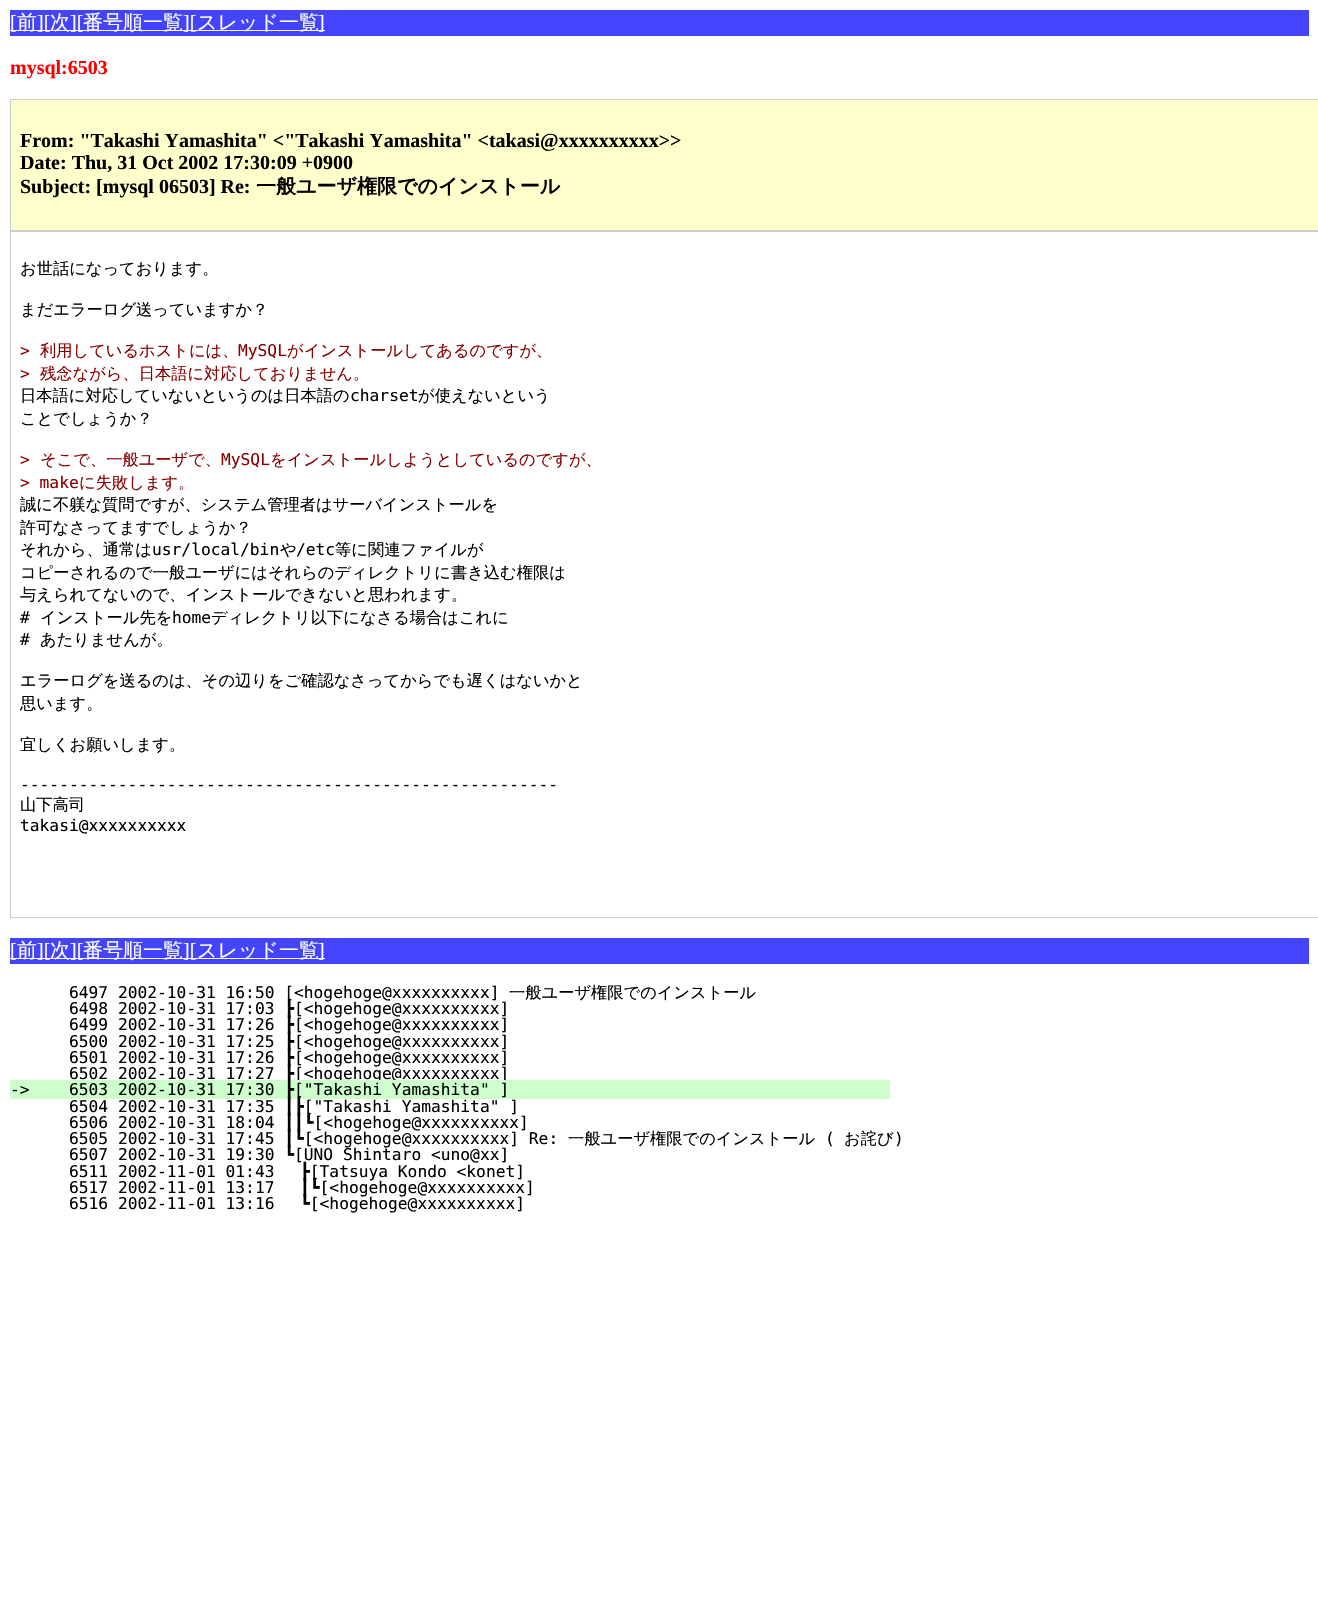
void draw(SkCanvas* canvas) {
    SkPaint paint;
    paint.setAntiAlias(true);
    auto face = [&](const char* family, int weight, float size, bool italic = false) {
        SkFontStyle style(weight, SkFontStyle::kNormal_Width,
            italic ? SkFontStyle::kItalic_Slant : SkFontStyle::kUpright_Slant);
        SkFont result(fontMgr->matchFamilyStyle(family, style), size);
        result.setSubpixel(true);
        return result;
    };
    auto write = [&](const char* s, float x, float y, const SkFont& font, SkColor color) {
        SkPaint ink(SkColor4f::FromColor(color));
        ink.setAntiAlias(true);
        canvas->drawString(s, x, y, font, ink);
    };
    auto block = [&](float x, float y, float w, float h, SkColor color) {
        SkPaint ink(SkColor4f::FromColor(color));
        ink.setAntiAlias(true);
        canvas->drawRect(SkRect::MakeXYWH(x, y, w, h), ink);
    };
    canvas->clear(SK_ColorWHITE);
    block(10, 10, 1299, 26, SkColorSetRGB(68, 68, 255));
    block(10, 30, 315, 1, SK_ColorWHITE);
    auto kFont1 = face("Liberation Serif", 400, 20);
    write("[", 10, 29, kFont1, SK_ColorWHITE);
    auto kFont2 = face("WenQuanYi Zen Hei", 500, 20);
    write("前", 17, 29, kFont2, SK_ColorWHITE);
    write("][", 37, 29, kFont1, SK_ColorWHITE);
    write("次", 50, 29, kFont2, SK_ColorWHITE);
    write("][", 70, 29, kFont1, SK_ColorWHITE);
    write("番号順一覧", 83, 29, kFont2, SK_ColorWHITE);
    write("][", 183, 29, kFont1, SK_ColorWHITE);
    write("スレッド一覧", 197, 29, kFont2, SK_ColorWHITE);
    write("]", 318, 29, kFont1, SK_ColorWHITE);
    auto kFont3 = face("Liberation Serif", 700, 20);
    write("mysql:6503", 10, 74, kFont3, SkColorSetRGB(255, 0, 0));
    paint.setColor(SkColorSetRGB(255, 255, 204));
    canvas->drawRect(SkRect::MakeXYWH(10.5f, 99.5f, 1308, 131), paint);
    paint.setStyle(SkPaint::kStroke_Style);
    paint.setStrokeWidth(1);
    paint.setColor(SkColorSetRGB(204, 204, 204));
    canvas->drawRect(SkRect::MakeXYWH(10.5f, 99.5f, 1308, 131), paint);
    write("From: \"Takashi Yamashita\" <\"Takashi Yamashita\" <takasi@xxxxxxxxxx>>", 20, 147, kFont3, SK_ColorBLACK);
    write("Date: Thu, 31 Oct 2002 17:30:09 +0900", 20, 169, kFont3, SK_ColorBLACK);
    write("Subject: [mysql 06503] Re:", 20, 193, kFont3, SK_ColorBLACK);
    auto kFont4 = face("WenQuanYi Zen Hei", 700, 20);
    write("一般ユーザ権限でのインストール", 256, 193, kFont4, SK_ColorBLACK);
    canvas->drawRect(SkRect::MakeXYWH(10.5f, 231.5f, 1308, 686), paint);
    auto kFont5 = face("WenQuanYi Zen Hei", 500, 16.25f);
    write("お世話になっております。", 20, 274, kFont5, SK_ColorBLACK);
    write("まだエラーログ送っていますか？", 20, 315, kFont5, SK_ColorBLACK);
    auto kFont6 = face("DejaVu Sans Mono", 400, 16.25f);
    write(">", 20, 356, kFont6, SkColorSetRGB(136, 0, 0));
    write("利用しているホストには、", 40, 356, kFont5, SkColorSetRGB(136, 0, 0));
    write("MySQL", 238, 356, kFont6, SkColorSetRGB(136, 0, 0));
    write("がインストールしてあるのですが、", 287, 356, kFont5, SkColorSetRGB(136, 0, 0));
    write(">", 20, 379, kFont6, SkColorSetRGB(136, 0, 0));
    write("残念ながら、日本語に対応しておりません。", 40, 379, kFont5, SkColorSetRGB(136, 0, 0));
    write("日本語に対応していないというのは日本語の", 20, 401, kFont5, SK_ColorBLACK);
    write("charset", 350, 401, kFont6, SK_ColorBLACK);
    write("が使えないという", 418, 401, kFont5, SK_ColorBLACK);
    write("ことでしょうか？", 20, 424, kFont5, SK_ColorBLACK);
    write(">", 20, 465, kFont6, SkColorSetRGB(136, 0, 0));
    write("そこで、一般ユーザで、", 40, 465, kFont5, SkColorSetRGB(136, 0, 0));
    write("MySQL", 221, 465, kFont6, SkColorSetRGB(136, 0, 0));
    write("をインストールしようとしているのですが、", 270, 465, kFont5, SkColorSetRGB(136, 0, 0));
    write("> make", 20, 488, kFont6, SkColorSetRGB(136, 0, 0));
    write("に失敗します。", 79, 488, kFont5, SkColorSetRGB(136, 0, 0));
    write("誠に不躾な質問ですが、システム管理者はサーバインストールを", 20, 510, kFont5, SK_ColorBLACK);
    write("許可なさってますでしょうか？", 20, 533, kFont5, SK_ColorBLACK);
    write("それから、通常は", 20, 555, kFont5, SK_ColorBLACK);
    write("usr/local/bin", 152, 555, kFont6, SK_ColorBLACK);
    write("や", 280, 555, kFont5, SK_ColorBLACK);
    write("/etc", 296, 555, kFont6, SK_ColorBLACK);
    write("等に関連ファイルが", 335, 555, kFont5, SK_ColorBLACK);
    write("コピーされるので一般ユーザにはそれらのディレクトリに書き込む権限は", 20, 578, kFont5, SK_ColorBLACK);
    write("与えられてないので、インストールできないと思われます。", 20, 600, kFont5, SK_ColorBLACK);
    write("#", 20, 623, kFont6, SK_ColorBLACK);
    write("インストール先を", 40, 623, kFont5, SK_ColorBLACK);
    write("home", 172, 623, kFont6, SK_ColorBLACK);
    write("ディレクトリ以下になさる場合はこれに", 211, 623, kFont5, SK_ColorBLACK);
    write("#", 20, 645, kFont6, SK_ColorBLACK);
    write("あたりませんが。", 40, 645, kFont5, SK_ColorBLACK);
    write("エラーログを送るのは、その辺りをご確認なさってからでも遅くはないかと", 20, 686, kFont5, SK_ColorBLACK);
    write("思います。", 20, 709, kFont5, SK_ColorBLACK);
    write("宜しくお願いします。", 20, 750, kFont5, SK_ColorBLACK);
    write("-------------------------------------------------------", 20, 790, kFont6, SK_ColorBLACK);
    write("山下高司", 20, 810, kFont5, SK_ColorBLACK);
    write("takasi@xxxxxxxxxx", 20, 831, kFont6, SK_ColorBLACK);
    block(10, 938, 1299, 26, SkColorSetRGB(68, 68, 255));
    block(10, 958, 315, 1, SK_ColorWHITE);
    write("[", 10, 957, kFont1, SK_ColorWHITE);
    write("前", 17, 957, kFont2, SK_ColorWHITE);
    write("][", 37, 957, kFont1, SK_ColorWHITE);
    write("次", 50, 957, kFont2, SK_ColorWHITE);
    write("][", 70, 957, kFont1, SK_ColorWHITE);
    write("番号順一覧", 83, 957, kFont2, SK_ColorWHITE);
    write("][", 183, 957, kFont1, SK_ColorWHITE);
    write("スレッド一覧", 197, 957, kFont2, SK_ColorWHITE);
    write("]", 318, 957, kFont1, SK_ColorWHITE);
    write("6497 2002-10-31 16:50 [<hogehoge@xxxxxxxxxx]", 69, 998, kFont6, SK_ColorBLACK);
    write("一般ユーザ権限でのインストール", 509, 998, kFont5, SK_ColorBLACK);
    write("6498 2002-10-31 17:03 ┣[<hogehoge@xxxxxxxxxx]", 69, 1014, kFont6, SK_ColorBLACK);
    write("6499 2002-10-31 17:26 ┣[<hogehoge@xxxxxxxxxx]", 69, 1030, kFont6, SK_ColorBLACK);
    write("6500 2002-10-31 17:25 ┣[<hogehoge@xxxxxxxxxx]", 69, 1047, kFont6, SK_ColorBLACK);
    write("6501 2002-10-31 17:26 ┣[<hogehoge@xxxxxxxxxx]", 69, 1063, kFont6, SK_ColorBLACK);
    write("6502 2002-10-31 17:27 ┣[<hogehoge@xxxxxxxxxx]", 69, 1079, kFont6, SK_ColorBLACK);
    block(10, 1080, 880, 19, SkColorSetRGB(204, 255, 204));
    write("->", 10, 1095, kFont6, SK_ColorBLACK);
    write("6503 2002-10-31 17:30 ┣[\"Takashi Yamashita\" ]", 69, 1095, kFont6, SK_ColorBLACK);
    write("6504 2002-10-31 17:35 ┃┣[\"Takashi Yamashita\" ]", 69, 1112, kFont6, SK_ColorBLACK);
    write("6506 2002-10-31 18:04 ┃┃┗[<hogehoge@xxxxxxxxxx]", 69, 1128, kFont6, SK_ColorBLACK);
    write("6505 2002-10-31 17:45 ┃┗[<hogehoge@xxxxxxxxxx] Re:", 69, 1144, kFont6, SK_ColorBLACK);
    write("一般ユーザ権限でのインストール", 568, 1144, kFont5, SK_ColorBLACK);
    write("(", 825, 1144, kFont6, SK_ColorBLACK);
    write("お詫び", 844, 1144, kFont5, SK_ColorBLACK);
    write(")", 894, 1144, kFont6, SK_ColorBLACK);
    write("6507 2002-10-31 19:30 ┗[UNO Shintaro <uno@xx]", 69, 1160, kFont6, SK_ColorBLACK);
    write("6511 2002-11-01 01:43", 69, 1177, kFont6, SK_ColorBLACK);
    write("┣[Tatsuya Kondo <konet]", 300, 1177, kFont6, SK_ColorBLACK);
    write("6517 2002-11-01 13:17", 69, 1193, kFont6, SK_ColorBLACK);
    write("┃┗[<hogehoge@xxxxxxxxxx]", 300, 1193, kFont6, SK_ColorBLACK);
    write("6516 2002-11-01 13:16", 69, 1209, kFont6, SK_ColorBLACK);
    write("┗[<hogehoge@xxxxxxxxxx]", 300, 1209, kFont6, SK_ColorBLACK);
}
